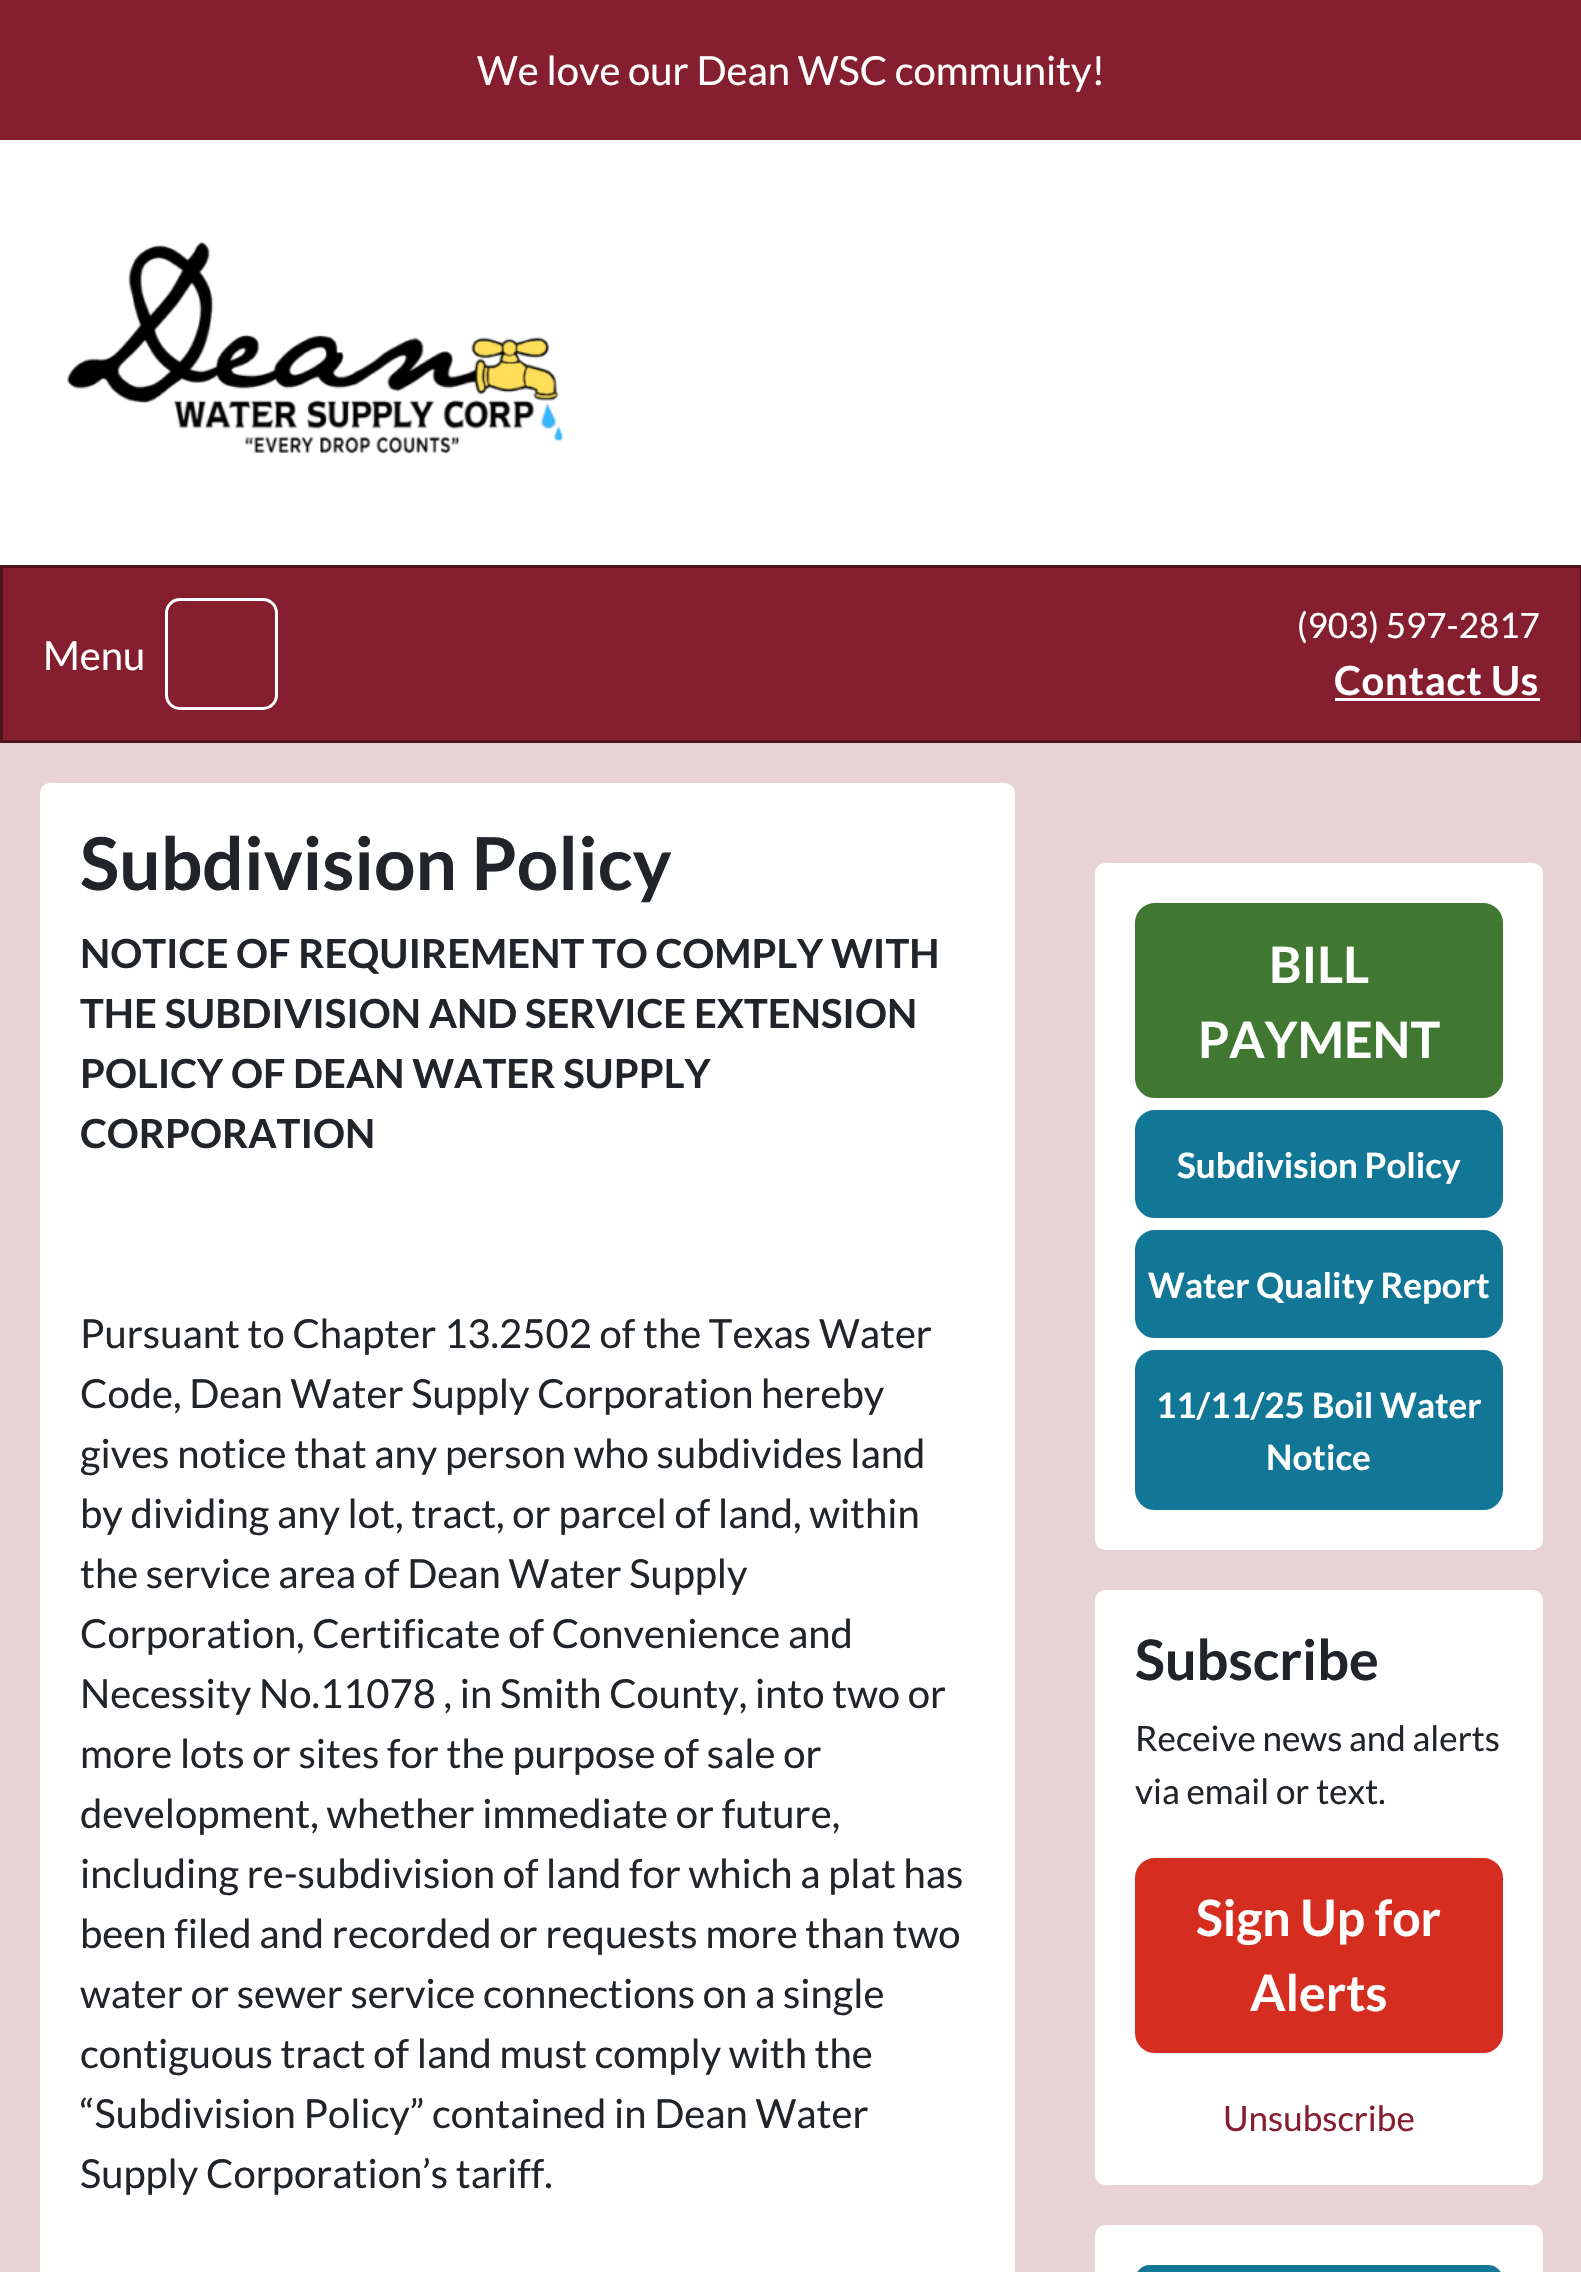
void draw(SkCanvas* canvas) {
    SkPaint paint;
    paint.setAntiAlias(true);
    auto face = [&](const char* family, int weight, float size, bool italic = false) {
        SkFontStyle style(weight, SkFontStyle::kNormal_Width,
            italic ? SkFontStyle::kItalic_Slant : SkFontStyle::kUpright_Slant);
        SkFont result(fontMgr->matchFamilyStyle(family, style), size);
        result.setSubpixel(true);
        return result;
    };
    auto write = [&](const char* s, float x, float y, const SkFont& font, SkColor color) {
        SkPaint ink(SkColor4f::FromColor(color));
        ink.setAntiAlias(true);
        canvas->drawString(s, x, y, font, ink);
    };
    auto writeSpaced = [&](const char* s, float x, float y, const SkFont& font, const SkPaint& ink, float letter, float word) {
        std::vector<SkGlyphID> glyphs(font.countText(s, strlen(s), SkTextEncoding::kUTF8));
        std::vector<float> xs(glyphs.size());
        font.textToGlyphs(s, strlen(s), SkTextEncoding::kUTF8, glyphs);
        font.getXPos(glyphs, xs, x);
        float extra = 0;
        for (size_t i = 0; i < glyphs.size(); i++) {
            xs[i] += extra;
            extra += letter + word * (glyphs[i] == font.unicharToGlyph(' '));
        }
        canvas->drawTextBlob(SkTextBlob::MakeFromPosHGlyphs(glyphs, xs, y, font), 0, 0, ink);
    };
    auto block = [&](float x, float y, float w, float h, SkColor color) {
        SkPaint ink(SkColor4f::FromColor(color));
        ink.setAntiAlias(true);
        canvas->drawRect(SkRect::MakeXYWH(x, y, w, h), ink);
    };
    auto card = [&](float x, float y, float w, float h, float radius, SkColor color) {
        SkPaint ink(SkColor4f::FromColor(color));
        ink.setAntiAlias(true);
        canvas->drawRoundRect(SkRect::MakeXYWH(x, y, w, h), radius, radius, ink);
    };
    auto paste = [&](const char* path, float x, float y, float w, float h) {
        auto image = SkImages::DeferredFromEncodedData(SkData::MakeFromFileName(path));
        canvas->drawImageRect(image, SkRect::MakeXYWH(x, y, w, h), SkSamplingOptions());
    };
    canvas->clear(SkColorSetRGB(231, 210, 213));
    block(0, 0, 1581, 140, SkColorSetRGB(133, 30, 47));
    auto kFont1 = face("Lato", 400, 40);
    write("We love our Dean WSC community!", 477, 85, kFont1, SK_ColorWHITE);
    block(0, 140, 1581, 425, SK_ColorWHITE);
    paste("pic1.png", 67, 242, 496, 212);
    paint.setColor(SkColorSetRGB(133, 30, 47));
    canvas->drawRect(SkRect::MakeXYWH(1.5f, 566.5f, 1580, 175), paint);
    paint.setStyle(SkPaint::kStroke_Style);
    paint.setStrokeWidth(3);
    paint.setColor(SkColorSetRGB(80, 18, 28));
    canvas->drawRect(SkRect::MakeXYWH(1.5f, 566.5f, 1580, 175), paint);
    write("Menu", 43, 670, kFont1, SK_ColorWHITE);
    paint.setColor(SK_ColorWHITE);
    canvas->drawRoundRect(SkRect::MakeXYWH(166.5f, 599.5f, 110, 109), 13.5f, 13.5f, paint);
    auto kFont2 = face("Lato", 400, 35);
    write("(903) 597-2817", 1297, 638, kFont2, SK_ColorWHITE);
    auto kFont3 = face("Lato", 700, 40);
    paint.setStyle(SkPaint::kFill_Style);
    writeSpaced("Contact Us", 1334, 695, kFont3, paint, 0.75f, 0);
    block(1335, 698, 205, 3, SK_ColorWHITE);
    card(40, 783, 975, 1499, 10, SK_ColorWHITE);
    auto kFont4 = face("Lato", 700, 73);
    write("Subdivision Policy", 80, 890, kFont4, SkColorSetRGB(33, 37, 41));
    write("NOTICE OF REQUIREMENT TO COMPLY WITH", 80, 968, kFont3, SkColorSetRGB(33, 37, 41));
    write("THE SUBDIVISION AND SERVICE EXTENSION", 80, 1028, kFont3, SkColorSetRGB(33, 37, 41));
    write("POLICY OF DEAN WATER SUPPLY", 80, 1088, kFont3, SkColorSetRGB(33, 37, 41));
    write("CORPORATION", 80, 1148, kFont3, SkColorSetRGB(33, 37, 41));
    write("Pursuant to Chapter 13.2502 of the Texas Water", 80, 1348, kFont1, SkColorSetRGB(33, 37, 41));
    write("Code, Dean Water Supply Corporation hereby", 80, 1408, kFont1, SkColorSetRGB(33, 37, 41));
    write("gives notice that any person who subdivides land", 80, 1468, kFont1, SkColorSetRGB(33, 37, 41));
    write("by dividing any lot, tract, or parcel of land, within", 80, 1528, kFont1, SkColorSetRGB(33, 37, 41));
    write("the service area of Dean Water Supply", 80, 1588, kFont1, SkColorSetRGB(33, 37, 41));
    write("Corporation, Certificate of Convenience and", 80, 1648, kFont1, SkColorSetRGB(33, 37, 41));
    write("Necessity No.11078 , in Smith County, into two or", 80, 1708, kFont1, SkColorSetRGB(33, 37, 41));
    write("more lots or sites for the purpose of sale or", 80, 1768, kFont1, SkColorSetRGB(33, 37, 41));
    write("development, whether immediate or future,", 80, 1828, kFont1, SkColorSetRGB(33, 37, 41));
    write("including re-subdivision of land for which a plat has", 80, 1888, kFont1, SkColorSetRGB(33, 37, 41));
    write("been filed and recorded or requests more than two", 80, 1948, kFont1, SkColorSetRGB(33, 37, 41));
    write("water or sewer service connections on a single", 80, 2008, kFont1, SkColorSetRGB(33, 37, 41));
    write("contiguous tract of land must comply with the", 80, 2068, kFont1, SkColorSetRGB(33, 37, 41));
    write("“Subdivision Policy” contained in Dean Water", 80, 2128, kFont1, SkColorSetRGB(33, 37, 41));
    write("Supply Corporation’s tariff.", 80, 2188, kFont1, SkColorSetRGB(33, 37, 41));
    card(1095, 863, 448, 687, 10, SK_ColorWHITE);
    paint.setColor(SkColorSetRGB(65, 120, 49));
    canvas->drawRoundRect(SkRect::MakeXYWH(1136.5f, 904.5f, 365, 192), 18.5f, 18.5f, paint);
    paint.setStyle(SkPaint::kStroke_Style);
    canvas->drawRoundRect(SkRect::MakeXYWH(1136.5f, 904.5f, 365, 192), 18.5f, 18.5f, paint);
    auto kFont5 = face("Lato", 700, 50);
    write("BILL", 1269, 983, kFont5, SK_ColorWHITE);
    write("PAYMENT", 1198, 1058, kFont5, SK_ColorWHITE);
    paint.setStyle(SkPaint::kFill_Style);
    paint.setColor(SkColorSetRGB(18, 118, 150));
    canvas->drawRoundRect(SkRect::MakeXYWH(1136.5f, 1111.5f, 365, 105), 18.5f, 18.5f, paint);
    paint.setStyle(SkPaint::kStroke_Style);
    canvas->drawRoundRect(SkRect::MakeXYWH(1136.5f, 1111.5f, 365, 105), 18.5f, 18.5f, paint);
    auto kFont6 = face("Lato", 700, 35);
    write("Subdivision Policy", 1177, 1178, kFont6, SK_ColorWHITE);
    paint.setStyle(SkPaint::kFill_Style);
    canvas->drawRoundRect(SkRect::MakeXYWH(1136.5f, 1231.5f, 365, 105), 18.5f, 18.5f, paint);
    paint.setStyle(SkPaint::kStroke_Style);
    canvas->drawRoundRect(SkRect::MakeXYWH(1136.5f, 1231.5f, 365, 105), 18.5f, 18.5f, paint);
    write("Water Quality Report", 1148, 1298, kFont6, SK_ColorWHITE);
    paint.setStyle(SkPaint::kFill_Style);
    canvas->drawRoundRect(SkRect::MakeXYWH(1136.5f, 1351.5f, 365, 157), 18.5f, 18.5f, paint);
    paint.setStyle(SkPaint::kStroke_Style);
    canvas->drawRoundRect(SkRect::MakeXYWH(1136.5f, 1351.5f, 365, 157), 18.5f, 18.5f, paint);
    write("11/11/25 Boil Water", 1156, 1418, kFont6, SK_ColorWHITE);
    write("Notice", 1266, 1470, kFont6, SK_ColorWHITE);
    card(1095, 1590, 448, 595, 10, SK_ColorWHITE);
    auto kFont7 = face("Lato", 700, 55.75f);
    write("Subscribe", 1135, 1680, kFont7, SkColorSetRGB(33, 37, 41));
    write("Receive news and alerts", 1135, 1751, kFont2, SkColorSetRGB(33, 37, 41));
    write("via email or text.", 1135, 1804, kFont2, SkColorSetRGB(33, 37, 41));
    paint.setStyle(SkPaint::kFill_Style);
    paint.setColor(SkColorSetRGB(213, 46, 32));
    canvas->drawRoundRect(SkRect::MakeXYWH(1136.5f, 1859.5f, 365, 192), 18.5f, 18.5f, paint);
    paint.setStyle(SkPaint::kStroke_Style);
    canvas->drawRoundRect(SkRect::MakeXYWH(1136.5f, 1859.5f, 365, 192), 18.5f, 18.5f, paint);
    write("Sign Up for", 1196, 1936, kFont5, SK_ColorWHITE);
    write("Alerts", 1250, 2011, kFont5, SK_ColorWHITE);
    write("Unsubscribe", 1223, 2131, kFont2, SkColorSetRGB(133, 30, 47));
    card(1095, 2225, 448, 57, 10, SK_ColorWHITE);
    paint.setStyle(SkPaint::kFill_Style);
    paint.setColor(SkColorSetRGB(18, 118, 150));
    canvas->drawRoundRect(SkRect::MakeXYWH(1136.5f, 2266.5f, 365, 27), 18.5f, 18.5f, paint);
    paint.setStyle(SkPaint::kStroke_Style);
    canvas->drawRoundRect(SkRect::MakeXYWH(1136.5f, 2266.5f, 365, 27), 18.5f, 18.5f, paint);
}
